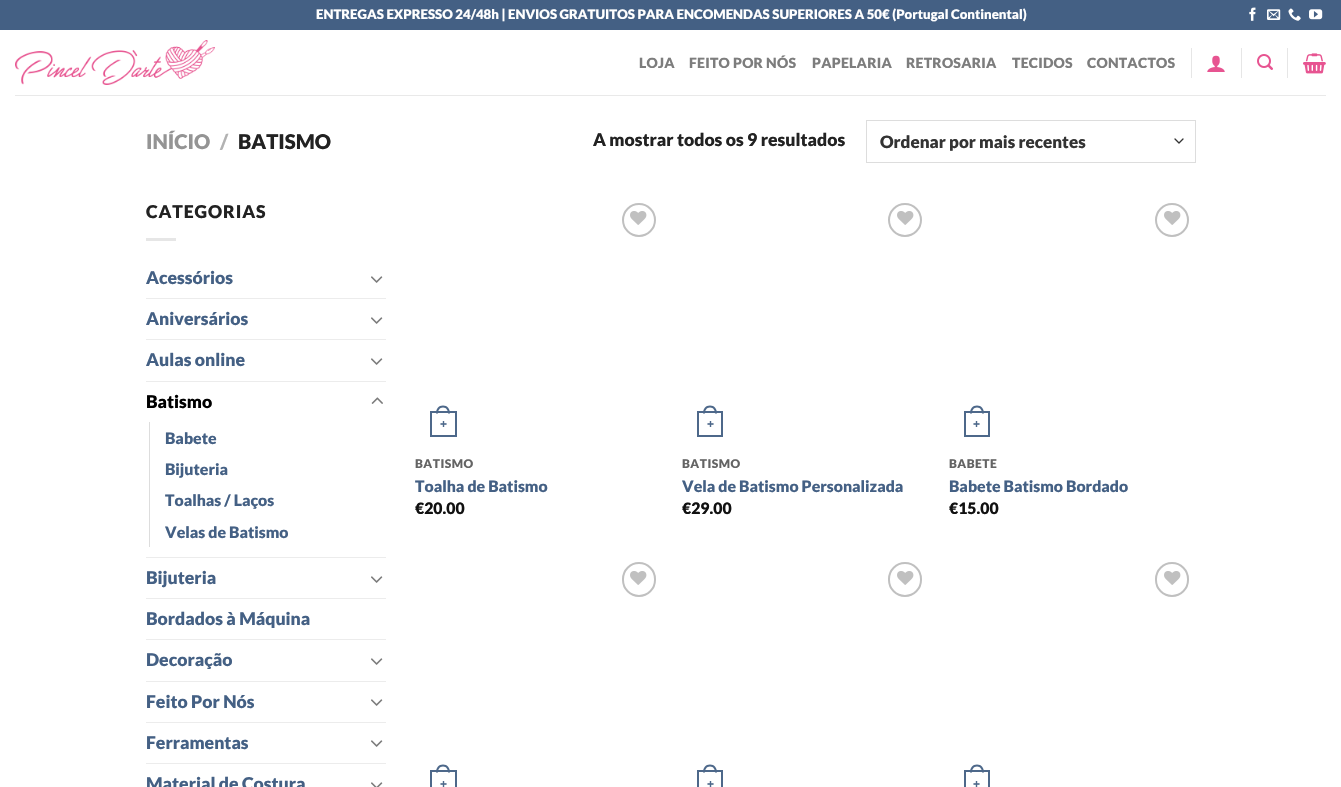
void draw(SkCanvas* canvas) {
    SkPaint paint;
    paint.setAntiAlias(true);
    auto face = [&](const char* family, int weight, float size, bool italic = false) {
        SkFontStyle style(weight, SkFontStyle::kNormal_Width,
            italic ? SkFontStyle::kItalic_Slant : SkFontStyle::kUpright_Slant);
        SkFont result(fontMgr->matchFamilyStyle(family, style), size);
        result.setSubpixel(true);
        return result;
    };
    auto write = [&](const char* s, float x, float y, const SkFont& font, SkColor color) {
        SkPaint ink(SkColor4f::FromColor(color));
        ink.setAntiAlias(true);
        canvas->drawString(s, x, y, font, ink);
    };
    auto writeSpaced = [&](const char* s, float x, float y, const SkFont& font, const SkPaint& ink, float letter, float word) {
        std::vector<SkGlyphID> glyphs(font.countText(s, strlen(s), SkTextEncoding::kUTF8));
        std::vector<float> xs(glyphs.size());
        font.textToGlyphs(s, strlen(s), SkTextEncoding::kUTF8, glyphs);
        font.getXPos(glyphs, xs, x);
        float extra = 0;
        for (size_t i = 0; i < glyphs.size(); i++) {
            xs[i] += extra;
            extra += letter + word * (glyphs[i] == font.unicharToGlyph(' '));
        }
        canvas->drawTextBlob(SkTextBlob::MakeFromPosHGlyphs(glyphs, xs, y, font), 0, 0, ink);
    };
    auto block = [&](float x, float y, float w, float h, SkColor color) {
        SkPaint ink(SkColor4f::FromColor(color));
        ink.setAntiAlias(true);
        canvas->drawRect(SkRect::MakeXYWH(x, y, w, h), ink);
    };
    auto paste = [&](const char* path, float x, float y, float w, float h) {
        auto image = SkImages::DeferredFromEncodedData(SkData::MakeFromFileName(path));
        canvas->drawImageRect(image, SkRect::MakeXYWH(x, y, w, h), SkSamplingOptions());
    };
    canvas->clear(SK_ColorWHITE);
    block(0, 0, 1341, 30, SkColorSetRGB(68, 96, 132));
    auto kFont1 = face("Lato", 900, 13.2f);
    write("ENTREGAS EXPRESSO 24/48h | ENVIOS GRATUITOS PARA ENCOMENDAS SUPERIORES A 50€ (Portugal Continental)", 316, 19, kFont1, SK_ColorWHITE);
    paste("pic1.png", 1249, 7, 7, 14);
    paste("pic2.png", 1267, 9, 14, 11);
    paste("pic3.png", 1288, 8, 13, 13);
    paste("pic4.png", 1309, 9, 14, 11);
    paste("pic5.png", 15, 40, 200, 45);
    auto kFont2 = face("Lato", 900, 14);
    paint.setColor(SkColorSetRGB(125, 125, 125));
    writeSpaced("LOJA", 639, 68, kFont2, paint, 0.25f, 0);
    writeSpaced("FEITO POR NÓS", 689, 68, kFont2, paint, 0.25f, 0);
    writeSpaced("PAPELARIA", 812, 68, kFont2, paint, 0.25f, 0);
    writeSpaced("RETROSARIA", 906, 68, kFont2, paint, 0.25f, 0);
    writeSpaced("TECIDOS", 1012, 68, kFont2, paint, 0.25f, 0);
    writeSpaced("CONTACTOS", 1087, 68, kFont2, paint, 0.25f, 0);
    block(1191, 48, 1, 30, SkColorSetRGB(230, 230, 230));
    paste("pic6.png", 1207, 55, 18, 17);
    block(1241, 48, 1, 30, SkColorSetRGB(230, 230, 230));
    paste("pic7.png", 1257, 54, 16, 16);
    block(1287, 48, 1, 30, SkColorSetRGB(230, 230, 230));
    paste("pic8.png", 1303, 53, 23, 21);
    block(15, 95, 1311, 1, SkColorSetRGB(233, 233, 233));
    auto kFont3 = face("Lato", 900, 20.25f);
    write("INÍCIO", 146, 149, kFont3, SkColorSetRGB(148, 148, 148));
    write("/", 220, 149, kFont3, SkColorSetRGB(178, 178, 178));
    write("BATISMO", 238, 149, kFont3, SkColorSetRGB(34, 34, 34));
    auto kFont4 = face("Lato", 900, 17.6f);
    write("A mostrar todos os 9 resultados", 593, 146, kFont4, SkColorSetRGB(34, 34, 34));
    paint.setStyle(SkPaint::kStroke_Style);
    paint.setStrokeWidth(1.3f);
    paint.setStrokeCap(SkPaint::kRound_Cap);
    paint.setStrokeJoin(SkPaint::kRound_Join);
    paint.setColor(SkColorSetRGB(51, 51, 51));
    canvas->drawPath(SkPathBuilder().moveTo(1175, 139).lineTo(1179, 143).lineTo(1183, 139).detach(), paint);
    paint.setStrokeWidth(1);
    paint.setStrokeCap(SkPaint::kButt_Cap);
    paint.setStrokeJoin(SkPaint::kMiter_Join);
    paint.setColor(SkColorSetRGB(221, 221, 221));
    canvas->drawRect(SkRect::MakeXYWH(866.5f, 120.5f, 329, 42), paint);
    auto kFont5 = face("Lato", 900, 17);
    write("Ordenar por mais recentes", 880, 148, kFont5, SkColorSetRGB(51, 51, 51));
    paint.setStyle(SkPaint::kFill_Style);
    paint.setColor(SkColorSetRGB(34, 34, 34));
    writeSpaced("CATEGORIAS", 146, 218, kFont4, paint, 0.9f, 0);
    block(146, 238, 30, 3, SkColorSetRGB(230, 230, 230));
    write("Acessórios", 146, 284, kFont4, SkColorSetRGB(68, 96, 132));
    paste("pic9.png", 371, 276, 12, 7);
    block(146, 298, 240, 1, SkColorSetRGB(236, 236, 236));
    write("Aniversários", 146, 325, kFont4, SkColorSetRGB(68, 96, 132));
    paste("pic9.png", 371, 317, 12, 7);
    block(146, 339, 240, 1, SkColorSetRGB(236, 236, 236));
    write("Aulas online", 146, 366, kFont4, SkColorSetRGB(68, 96, 132));
    paste("pic9.png", 371, 358, 12, 7);
    block(146, 381, 240, 1, SkColorSetRGB(236, 236, 236));
    write("Batismo", 146, 408, kFont4, SK_ColorBLACK);
    paste("pic10.png", 371, 397, 12, 7);
    block(149, 422, 1, 125, SkColorSetRGB(221, 221, 221));
    auto kFont6 = face("Lato", 900, 15.8f);
    write("Babete", 165, 444, kFont6, SkColorSetRGB(68, 96, 132));
    write("Bijuteria", 165, 475, kFont6, SkColorSetRGB(68, 96, 132));
    write("Toalhas / Laços", 165, 506, kFont6, SkColorSetRGB(68, 96, 132));
    write("Velas de Batismo", 165, 538, kFont6, SkColorSetRGB(68, 96, 132));
    block(146, 557, 240, 1, SkColorSetRGB(236, 236, 236));
    write("Bijuteria", 146, 584, kFont4, SkColorSetRGB(68, 96, 132));
    paste("pic9.png", 371, 576, 12, 7);
    block(146, 598, 240, 1, SkColorSetRGB(236, 236, 236));
    write("Bordados à Máquina", 146, 625, kFont4, SkColorSetRGB(68, 96, 132));
    block(146, 639, 240, 1, SkColorSetRGB(236, 236, 236));
    write("Decoração", 146, 666, kFont4, SkColorSetRGB(68, 96, 132));
    paste("pic9.png", 371, 658, 12, 7);
    block(146, 681, 240, 1, SkColorSetRGB(236, 236, 236));
    write("Feito Por Nós", 146, 708, kFont4, SkColorSetRGB(68, 96, 132));
    paste("pic9.png", 371, 699, 12, 7);
    block(146, 722, 240, 1, SkColorSetRGB(236, 236, 236));
    write("Ferramentas", 146, 749, kFont4, SkColorSetRGB(68, 96, 132));
    paste("pic9.png", 371, 740, 12, 7);
    block(146, 763, 240, 1, SkColorSetRGB(236, 236, 236));
    write("Material de Costura", 146, 790, kFont4, SkColorSetRGB(68, 96, 132));
    paste("pic11.png", 371, 782, 12, 5);
    paint.setStyle(SkPaint::kStroke_Style);
    paint.setStrokeWidth(2);
    paint.setColor(SkColorSetRGB(192, 192, 192));
    canvas->drawCircle(639, 220, 16, paint);
    paste("pic12.png", 630, 211, 17, 14);
    paint.setColor(SkColorSetRGB(77, 104, 138));
    canvas->drawRect(SkRect::MakeXYWH(431, 412, 25, 24), paint);
    paint.setStyle(SkPaint::kFill_Style);
    canvas->drawPath(SkPathBuilder(SkPathFillType::kEvenOdd).moveTo(443, 405.5f).cubicTo(447.5f, 405.5f, 450, 409, 450, 413.5f).lineTo(436, 413.5f).cubicTo(436, 409, 438.5f, 405.5f, 443, 405.5f).close().moveTo(443, 407.5f).cubicTo(446.5f, 407.5f, 448, 410.5f, 448, 413.5f).lineTo(438, 413.5f).cubicTo(438, 410.5f, 439.5f, 407.5f, 443, 407.5f).close().detach(), paint);
    auto kFont7 = face("Liberation Sans", 700, 12);
    write("+", 440, 428, kFont7, SkColorSetRGB(77, 104, 138));
    auto kFont8 = face("Lato", 900, 12);
    paint.setColor(SkColorSetRGB(100, 100, 100));
    writeSpaced("BATISMO", 415, 468, kFont8, paint, 0.5f, 0);
    write("Toalha de Batismo", 415, 492, kFont6, SkColorSetRGB(68, 96, 132));
    write("€20.00", 415, 514, kFont6, SkColorSetRGB(17, 17, 17));
    paint.setStyle(SkPaint::kStroke_Style);
    paint.setColor(SkColorSetRGB(192, 192, 192));
    canvas->drawCircle(905, 220, 16, paint);
    paste("pic12.png", 897, 211, 17, 14);
    paint.setColor(SkColorSetRGB(77, 104, 138));
    canvas->drawRect(SkRect::MakeXYWH(698, 412, 24, 24), paint);
    paint.setStyle(SkPaint::kFill_Style);
    canvas->drawPath(SkPathBuilder(SkPathFillType::kEvenOdd).moveTo(710, 405.5f).cubicTo(714.5f, 405.5f, 717, 409, 717, 413.5f).lineTo(703, 413.5f).cubicTo(703, 409, 705.5f, 405.5f, 710, 405.5f).close().moveTo(710, 407.5f).cubicTo(713.5f, 407.5f, 715, 410.5f, 715, 413.5f).lineTo(705, 413.5f).cubicTo(705, 410.5f, 706.5f, 407.5f, 710, 407.5f).close().detach(), paint);
    write("+", 707, 428, kFont7, SkColorSetRGB(77, 104, 138));
    paint.setColor(SkColorSetRGB(100, 100, 100));
    writeSpaced("BATISMO", 682, 468, kFont8, paint, 0.5f, 0);
    write("Vela de Batismo Personalizada", 682, 492, kFont6, SkColorSetRGB(68, 96, 132));
    write("€29.00", 682, 514, kFont6, SkColorSetRGB(17, 17, 17));
    paint.setStyle(SkPaint::kStroke_Style);
    paint.setColor(SkColorSetRGB(192, 192, 192));
    canvas->drawCircle(1172, 220, 16, paint);
    paste("pic12.png", 1164, 211, 17, 14);
    paint.setColor(SkColorSetRGB(77, 104, 138));
    canvas->drawRect(SkRect::MakeXYWH(965, 412, 24, 24), paint);
    paint.setStyle(SkPaint::kFill_Style);
    canvas->drawPath(SkPathBuilder(SkPathFillType::kEvenOdd).moveTo(977, 405.5f).cubicTo(981.5f, 405.5f, 984, 409, 984, 413.5f).lineTo(970, 413.5f).cubicTo(970, 409, 972.5f, 405.5f, 977, 405.5f).close().moveTo(977, 407.5f).cubicTo(980.5f, 407.5f, 982, 410.5f, 982, 413.5f).lineTo(972, 413.5f).cubicTo(972, 410.5f, 973.5f, 407.5f, 977, 407.5f).close().detach(), paint);
    write("+", 973, 428, kFont7, SkColorSetRGB(77, 104, 138));
    paint.setColor(SkColorSetRGB(100, 100, 100));
    writeSpaced("BABETE", 949, 468, kFont8, paint, 0.5f, 0);
    write("Babete Batismo Bordado", 949, 492, kFont6, SkColorSetRGB(68, 96, 132));
    write("€15.00", 949, 514, kFont6, SkColorSetRGB(17, 17, 17));
    paint.setStyle(SkPaint::kStroke_Style);
    paint.setColor(SkColorSetRGB(192, 192, 192));
    canvas->drawRoundRect(SkRect::MakeXYWH(623, 563, 32, 33), 16, 16, paint);
    paste("pic12.png", 630, 571, 17, 14);
    paint.setColor(SkColorSetRGB(77, 104, 138));
    canvas->drawRect(SkRect::MakeXYWH(431, 771, 25, 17), paint);
    paint.setStyle(SkPaint::kFill_Style);
    canvas->drawPath(SkPathBuilder(SkPathFillType::kEvenOdd).moveTo(443, 764.5f).cubicTo(447.5f, 764.5f, 450, 768, 450, 772.5f).lineTo(436, 772.5f).cubicTo(436, 768, 438.5f, 764.5f, 443, 764.5f).close().moveTo(443, 766.5f).cubicTo(446.5f, 766.5f, 448, 769.5f, 448, 772.5f).lineTo(438, 772.5f).cubicTo(438, 769.5f, 439.5f, 766.5f, 443, 766.5f).close().detach(), paint);
    write("+", 440, 788, kFont7, SkColorSetRGB(77, 104, 138));
    paint.setStyle(SkPaint::kStroke_Style);
    paint.setColor(SkColorSetRGB(192, 192, 192));
    canvas->drawRoundRect(SkRect::MakeXYWH(889, 563, 32, 33), 16, 16, paint);
    paste("pic12.png", 897, 571, 17, 14);
    paint.setColor(SkColorSetRGB(77, 104, 138));
    canvas->drawRect(SkRect::MakeXYWH(698, 771, 24, 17), paint);
    paint.setStyle(SkPaint::kFill_Style);
    canvas->drawPath(SkPathBuilder(SkPathFillType::kEvenOdd).moveTo(710, 764.5f).cubicTo(714.5f, 764.5f, 717, 768, 717, 772.5f).lineTo(703, 772.5f).cubicTo(703, 768, 705.5f, 764.5f, 710, 764.5f).close().moveTo(710, 766.5f).cubicTo(713.5f, 766.5f, 715, 769.5f, 715, 772.5f).lineTo(705, 772.5f).cubicTo(705, 769.5f, 706.5f, 766.5f, 710, 766.5f).close().detach(), paint);
    write("+", 707, 788, kFont7, SkColorSetRGB(77, 104, 138));
    paint.setStyle(SkPaint::kStroke_Style);
    paint.setColor(SkColorSetRGB(192, 192, 192));
    canvas->drawRoundRect(SkRect::MakeXYWH(1156, 563, 32, 33), 16, 16, paint);
    paste("pic12.png", 1164, 571, 17, 14);
    paint.setColor(SkColorSetRGB(77, 104, 138));
    canvas->drawRect(SkRect::MakeXYWH(965, 771, 24, 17), paint);
    paint.setStyle(SkPaint::kFill_Style);
    canvas->drawPath(SkPathBuilder(SkPathFillType::kEvenOdd).moveTo(977, 764.5f).cubicTo(981.5f, 764.5f, 984, 768, 984, 772.5f).lineTo(970, 772.5f).cubicTo(970, 768, 972.5f, 764.5f, 977, 764.5f).close().moveTo(977, 766.5f).cubicTo(980.5f, 766.5f, 982, 769.5f, 982, 772.5f).lineTo(972, 772.5f).cubicTo(972, 769.5f, 973.5f, 766.5f, 977, 766.5f).close().detach(), paint);
    write("+", 973, 788, kFont7, SkColorSetRGB(77, 104, 138));
}
